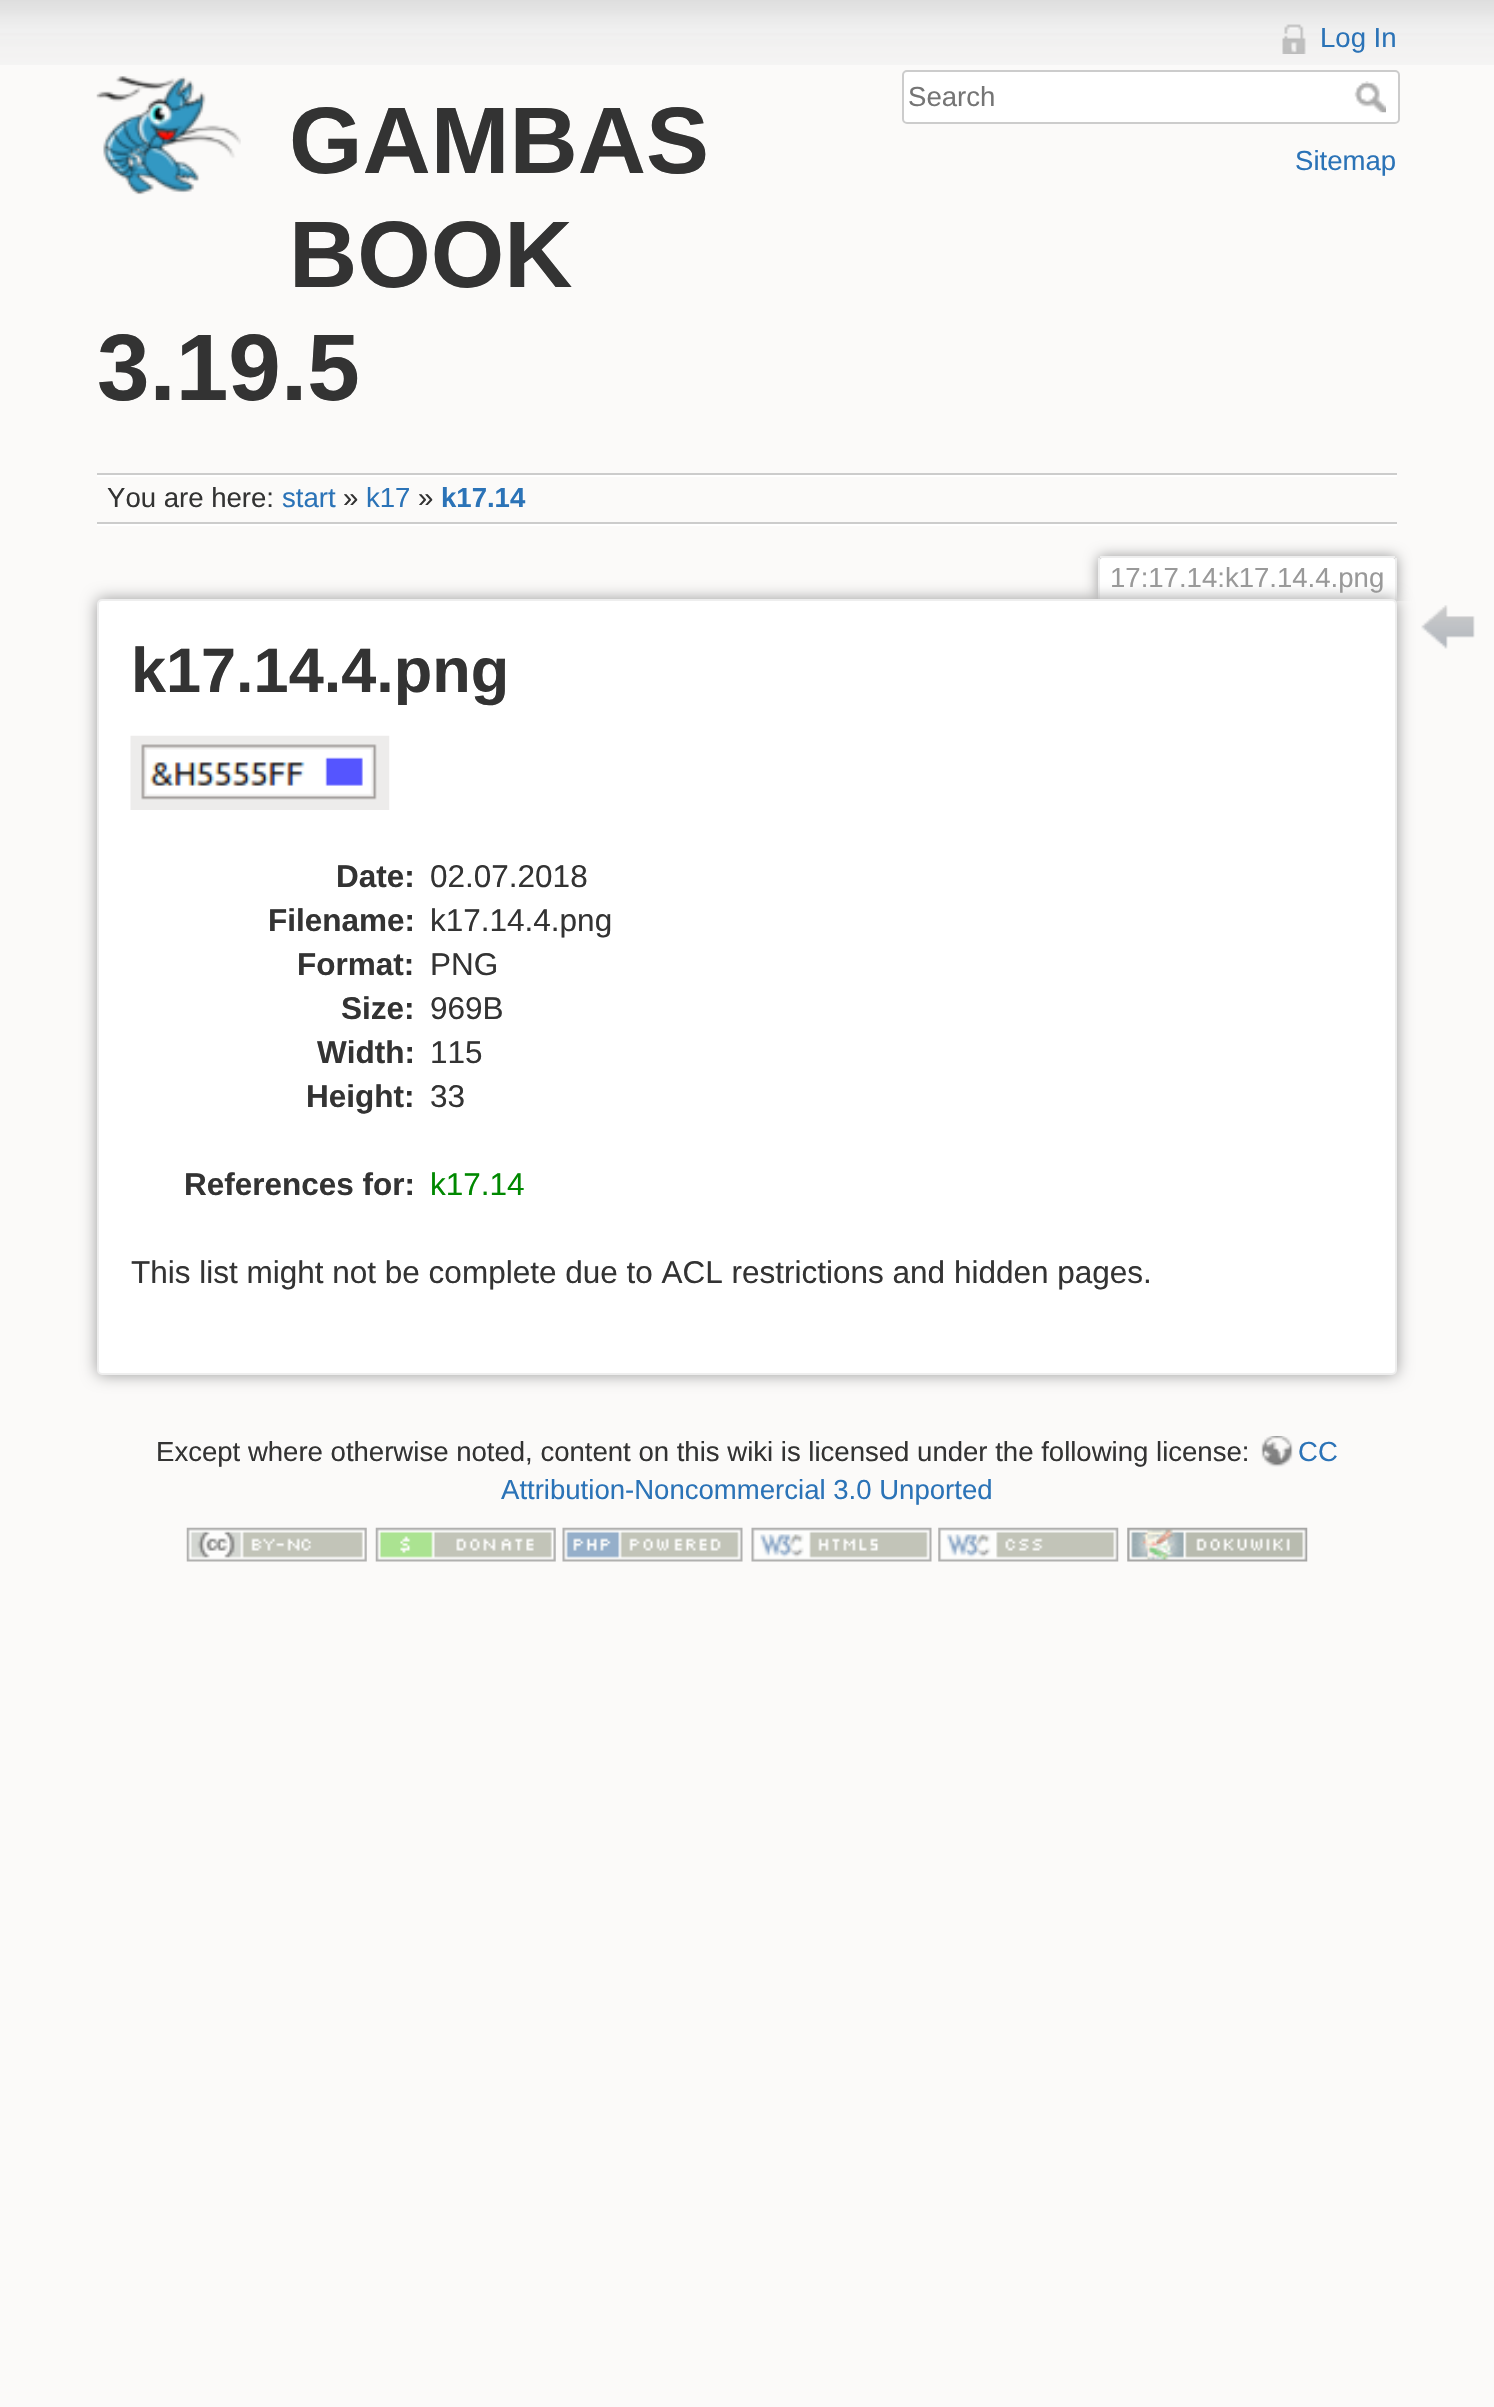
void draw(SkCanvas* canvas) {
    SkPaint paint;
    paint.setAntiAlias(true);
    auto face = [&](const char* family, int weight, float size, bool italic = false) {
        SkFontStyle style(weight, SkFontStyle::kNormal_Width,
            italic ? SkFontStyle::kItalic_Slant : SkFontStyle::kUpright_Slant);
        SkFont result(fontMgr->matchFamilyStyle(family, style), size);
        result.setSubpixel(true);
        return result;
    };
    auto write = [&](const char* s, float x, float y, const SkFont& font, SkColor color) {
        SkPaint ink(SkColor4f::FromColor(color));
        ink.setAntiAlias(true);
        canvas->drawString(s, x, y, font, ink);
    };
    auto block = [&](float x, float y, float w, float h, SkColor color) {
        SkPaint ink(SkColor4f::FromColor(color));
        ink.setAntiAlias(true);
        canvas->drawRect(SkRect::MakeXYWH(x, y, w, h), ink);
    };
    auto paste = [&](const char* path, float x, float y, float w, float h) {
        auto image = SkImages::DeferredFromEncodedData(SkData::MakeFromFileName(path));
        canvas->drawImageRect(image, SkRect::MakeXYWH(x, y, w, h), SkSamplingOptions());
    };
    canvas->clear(SkColorSetRGB(251, 250, 249));
    paste("pic1.png", 0, 0, 1494, 65);
    paste("pic2.png", 96, 76, 145, 119);
    auto kFont1 = face("Liberation Sans", 700, 94.5f);
    write("GAMBAS", 289, 173, kFont1, SkColorSetRGB(51, 51, 51));
    write("BOOK", 289, 287, kFont1, SkColorSetRGB(51, 51, 51));
    write("3.19.5", 97, 400, kFont1, SkColorSetRGB(51, 51, 51));
    paste("pic3.png", 1282, 24, 24, 30);
    auto kFont2 = face("Liberation Sans", 400, 27.55f);
    write("Log In", 1320, 47, kFont2, SkColorSetRGB(43, 115, 183));
    paint.setColor(SK_ColorWHITE);
    canvas->drawRoundRect(SkRect::MakeXYWH(903, 71, 496, 52), 4, 4, paint);
    paint.setStyle(SkPaint::kStroke_Style);
    paint.setStrokeWidth(2);
    paint.setColor(SkColorSetRGB(204, 204, 204));
    canvas->drawRoundRect(SkRect::MakeXYWH(903, 71, 496, 52), 4, 4, paint);
    write("Search", 908, 106, kFont2, SkColorSetRGB(117, 117, 117));
    paste("pic4.png", 1354, 81, 32, 32);
    write("Sitemap", 1295, 170, kFont2, SkColorSetRGB(43, 115, 183));
    block(97, 473, 1300, 2, SkColorSetRGB(204, 204, 204));
    block(97, 524, 1300, 2, SK_ColorWHITE);
    block(97, 475, 1300, 2, SK_ColorWHITE);
    block(97, 522, 1300, 2, SkColorSetRGB(204, 204, 204));
    write("You are here:", 107, 507, kFont2, SkColorSetRGB(51, 51, 51));
    write("start", 282, 507, kFont2, SkColorSetRGB(43, 115, 183));
    write("»", 343, 507, kFont2, SkColorSetRGB(51, 51, 51));
    write("k17", 366, 507, kFont2, SkColorSetRGB(43, 115, 183));
    write("»", 418, 507, kFont2, SkColorSetRGB(51, 51, 51));
    auto kFont3 = face("Liberation Sans", 700, 27.55f);
    write("k17.14", 441, 507, kFont3, SkColorSetRGB(43, 115, 183));
    canvas->save();
    canvas->clipRect(SkRect::MakeXYWH(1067, 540, 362, 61));
    paint.setStyle(SkPaint::kFill_Style);
    paint.setColor(SkColorSetRGB(153, 153, 153));
    paint.setMaskFilter(SkMaskFilter::MakeBlur(kNormal_SkBlurStyle, 7));
    canvas->drawRoundRect(SkRect::MakeXYWH(1098, 556, 299, 45), 5, 5, paint);
    paint.setMaskFilter(nullptr);
    canvas->restore();
    paint.setColor(SK_ColorWHITE);
    canvas->drawPath(SkPathBuilder().moveTo(1102, 558).lineTo(1393, 558).cubicTo(1394, 558, 1395, 559, 1395, 560).lineTo(1395, 601).lineTo(1100, 601).lineTo(1100, 560).cubicTo(1100, 559, 1101, 558, 1102, 558).close().detach(), paint);
    block(1100, 556, 295, 2, SkColorSetRGB(238, 238, 238));
    block(1395, 558, 2, 43, SkColorSetRGB(238, 238, 238));
    block(1098, 558, 2, 43, SkColorSetRGB(238, 238, 238));
    write("17:17.14:k17.14.4.png", 1110, 587, kFont2, SkColorSetRGB(153, 153, 153));
    paint.setColor(SkColorSetRGB(153, 153, 153));
    paint.setMaskFilter(SkMaskFilter::MakeBlur(kNormal_SkBlurStyle, 8));
    canvas->drawRoundRect(SkRect::MakeXYWH(97, 599, 1300, 776), 5, 5, paint);
    paint.setMaskFilter(nullptr);
    paint.setColor(SK_ColorWHITE);
    canvas->drawRoundRect(SkRect::MakeXYWH(98, 600, 1298, 774), 4, 4, paint);
    paint.setStyle(SkPaint::kStroke_Style);
    paint.setColor(SkColorSetRGB(238, 238, 238));
    canvas->drawRoundRect(SkRect::MakeXYWH(98, 600, 1298, 774), 4, 4, paint);
    auto kFont4 = face("Liberation Sans", 700, 63);
    write("k17.14.4.png", 131, 692, kFont4, SkColorSetRGB(51, 51, 51));
    paste("pic5.png", 130, 735, 260, 75);
    auto kFont5 = face("Liberation Sans", 700, 31.5f);
    write("Date:", 336, 887, kFont5, SkColorSetRGB(51, 51, 51));
    auto kFont6 = face("Liberation Sans", 400, 31.5f);
    write("02.07.2018", 430, 887, kFont6, SkColorSetRGB(51, 51, 51));
    write("Filename:", 268, 931, kFont5, SkColorSetRGB(51, 51, 51));
    write("k17.14.4.png", 430, 931, kFont6, SkColorSetRGB(51, 51, 51));
    write("Format:", 297, 975, kFont5, SkColorSetRGB(51, 51, 51));
    write("PNG", 430, 975, kFont6, SkColorSetRGB(51, 51, 51));
    write("Size:", 341, 1019, kFont5, SkColorSetRGB(51, 51, 51));
    write("969B", 430, 1019, kFont6, SkColorSetRGB(51, 51, 51));
    write("Width:", 317, 1063, kFont5, SkColorSetRGB(51, 51, 51));
    write("115", 430, 1063, kFont6, SkColorSetRGB(51, 51, 51));
    write("Height:", 306, 1107, kFont5, SkColorSetRGB(51, 51, 51));
    write("33", 430, 1107, kFont6, SkColorSetRGB(51, 51, 51));
    write("References for:", 184, 1195, kFont5, SkColorSetRGB(51, 51, 51));
    write("k17.14", 430, 1195, kFont6, SkColorSetRGB(0, 136, 0));
    write("This list might not be complete due to ACL restrictions and hidden pages.", 131, 1283, kFont6, SkColorSetRGB(51, 51, 51));
    paste("pic6.png", 1421, 605, 54, 44);
    write("Except where otherwise noted, content on this wiki is licensed under the following license:", 156, 1461, kFont2, SkColorSetRGB(51, 51, 51));
    paste("pic7.png", 1261, 1436, 32, 31);
    write("CC", 1298, 1461, kFont2, SkColorSetRGB(43, 115, 183));
    write("Attribution-Noncommercial 3.0 Unported", 501, 1499, kFont2, SkColorSetRGB(43, 115, 183));
    paste("pic8.png", 186, 1527, 181, 35);
    paste("pic9.png", 375, 1527, 181, 35);
    paste("pic10.png", 562, 1527, 181, 35);
    paste("pic11.png", 751, 1527, 181, 35);
    paste("pic12.png", 938, 1527, 181, 35);
    paste("pic13.png", 1127, 1527, 181, 35);
}
